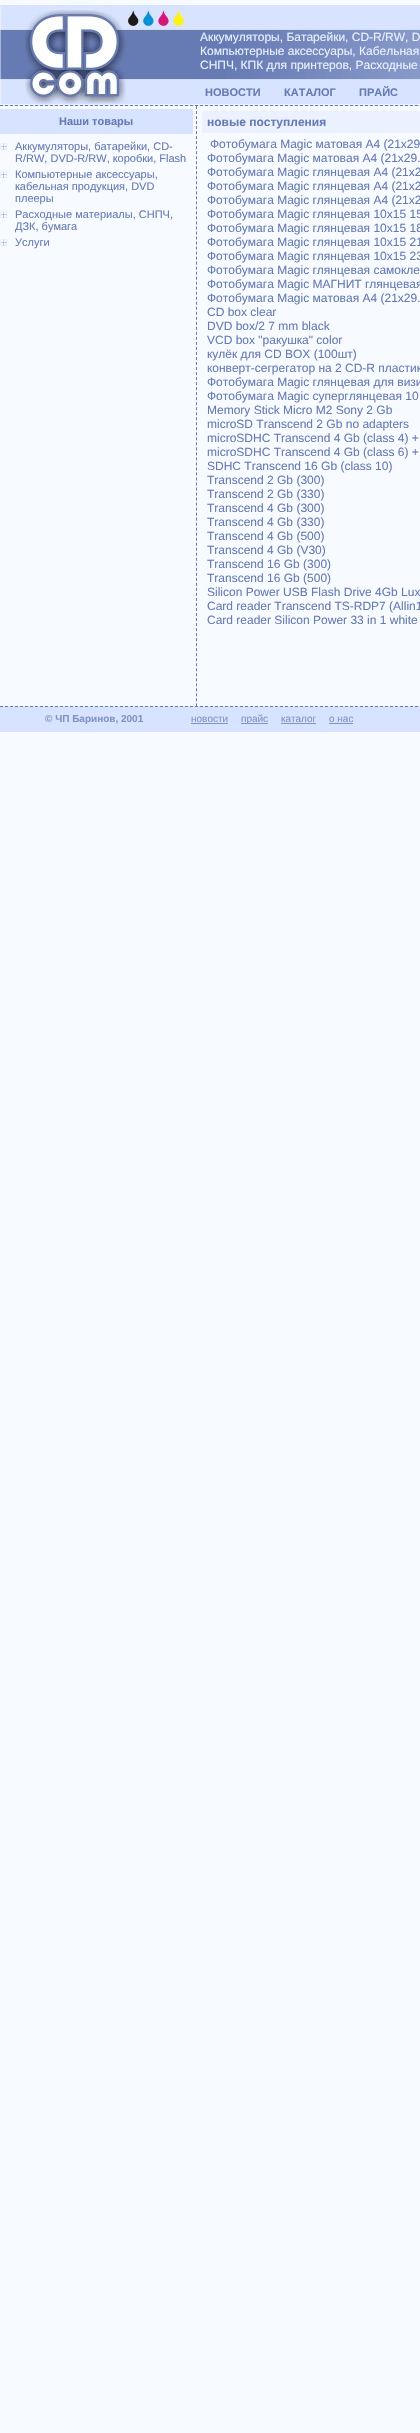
void draw(SkCanvas* canvas) {
    SkPaint paint;
    paint.setAntiAlias(true);
    auto face = [&](const char* family, int weight, float size, bool italic = false) {
        SkFontStyle style(weight, SkFontStyle::kNormal_Width,
            italic ? SkFontStyle::kItalic_Slant : SkFontStyle::kUpright_Slant);
        SkFont result(fontMgr->matchFamilyStyle(family, style), size);
        result.setSubpixel(true);
        return result;
    };
    auto write = [&](const char* s, float x, float y, const SkFont& font, SkColor color) {
        SkPaint ink(SkColor4f::FromColor(color));
        ink.setAntiAlias(true);
        canvas->drawString(s, x, y, font, ink);
    };
    auto block = [&](float x, float y, float w, float h, SkColor color) {
        SkPaint ink(SkColor4f::FromColor(color));
        ink.setAntiAlias(true);
        canvas->drawRect(SkRect::MakeXYWH(x, y, w, h), ink);
    };
    auto paste = [&](const char* path, float x, float y, float w, float h) {
        auto image = SkImages::DeferredFromEncodedData(SkData::MakeFromFileName(path));
        canvas->drawImageRect(image, SkRect::MakeXYWH(x, y, w, h), SkSamplingOptions());
    };
    canvas->clear(SkColorSetRGB(247, 250, 255));
    block(0, 5, 420, 101, SkColorSetRGB(215, 227, 255));
    paste("pic1.png", 0, 7, 420, 98);
    paint.setStyle(SkPaint::kStroke_Style);
    paint.setStrokeWidth(1);
    paint.setColor(SkColorSetRGB(100, 122, 180));
    paint.setPathEffect(SkDashPathEffect::Make({{3, 2}}, 0));
    canvas->drawPath(SkPathBuilder().moveTo(0, 105.5f).lineTo(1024, 105.5f).detach(), paint);
    paint.setPathEffect(nullptr);
    auto kFont1 = face("Liberation Sans", 400, 12);
    write("Аккумуляторы, Батарейки, CD-R/RW, D", 200, 41, kFont1, SkColorSetRGB(233, 240, 255));
    write("Компьютерные аксессуары, Кабельная", 200, 55, kFont1, SkColorSetRGB(233, 240, 255));
    write("СНПЧ, КПК для принтеров, Расходные", 200, 69, kFont1, SkColorSetRGB(233, 240, 255));
    auto kFont2 = face("Liberation Sans", 700, 11);
    write("НОВОСТИ", 205, 96, kFont2, SkColorSetRGB(102, 123, 180));
    write("КАТАЛОГ", 284, 96, kFont2, SkColorSetRGB(102, 123, 180));
    write("ПРАЙС", 359, 96, kFont2, SkColorSetRGB(102, 123, 180));
    paint.setPathEffect(SkDashPathEffect::Make({{3, 2.02f}}, 0));
    canvas->drawPath(SkPathBuilder().moveTo(196.5f, 106).lineTo(196.5f, 706).detach(), paint);
    paint.setPathEffect(nullptr);
    block(0, 109, 193, 25, SkColorSetRGB(215, 227, 255));
    write("Наши товары", 59, 125, kFont2, SkColorSetRGB(102, 123, 180));
    paste("pic2.png", 0, 143, 7, 7);
    auto kFont3 = face("Liberation Sans", 400, 11);
    write("Аккумуляторы, батарейки, CD-", 15, 150, kFont3, SkColorSetRGB(102, 123, 180));
    write("R/RW, DVD-R/RW, коробки, Flash", 15, 162, kFont3, SkColorSetRGB(102, 123, 180));
    paste("pic2.png", 0, 171, 7, 7);
    write("Компьютерные аксессуары,", 15, 178, kFont3, SkColorSetRGB(102, 123, 180));
    write("кабельная продукция, DVD", 15, 190, kFont3, SkColorSetRGB(102, 123, 180));
    write("плееры", 15, 202, kFont3, SkColorSetRGB(102, 123, 180));
    paste("pic2.png", 0, 211, 7, 7);
    write("Расходные материалы, СНПЧ,", 15, 218, kFont3, SkColorSetRGB(102, 123, 180));
    write("ДЗК, бумага", 15, 230, kFont3, SkColorSetRGB(102, 123, 180));
    paste("pic2.png", 0, 239, 7, 7);
    write("Услуги", 15, 246, kFont3, SkColorSetRGB(102, 123, 180));
    block(202, 111, 218, 22, SkColorSetRGB(235, 241, 255));
    auto kFont4 = face("Liberation Sans", 700, 12);
    write("новые поступления", 207, 126, kFont4, SkColorSetRGB(102, 123, 180));
    write("Фотобумага Magic матовая А4 (21x29", 210, 148, kFont1, SkColorSetRGB(102, 123, 180));
    write("Фотобумага Magic матовая А4 (21x29.", 207, 162, kFont1, SkColorSetRGB(102, 123, 180));
    write("Фотобумага Magic глянцевая А4 (21x2", 207, 176, kFont1, SkColorSetRGB(102, 123, 180));
    write("Фотобумага Magic глянцевая А4 (21x2", 207, 190, kFont1, SkColorSetRGB(102, 123, 180));
    write("Фотобумага Magic глянцевая А4 (21x2", 207, 204, kFont1, SkColorSetRGB(102, 123, 180));
    write("Фотобумага Magic глянцевая 10x15 15", 207, 218, kFont1, SkColorSetRGB(102, 123, 180));
    write("Фотобумага Magic глянцевая 10x15 18", 207, 232, kFont1, SkColorSetRGB(102, 123, 180));
    write("Фотобумага Magic глянцевая 10x15 21", 207, 246, kFont1, SkColorSetRGB(102, 123, 180));
    write("Фотобумага Magic глянцевая 10x15 23", 207, 260, kFont1, SkColorSetRGB(102, 123, 180));
    write("Фотобумага Magic глянцевая самокле", 207, 274, kFont1, SkColorSetRGB(102, 123, 180));
    write("Фотобумага Magic МАГНИТ глянцевая", 207, 288, kFont1, SkColorSetRGB(102, 123, 180));
    write("Фотобумага Magic матовая А4 (21x29.", 207, 302, kFont1, SkColorSetRGB(102, 123, 180));
    write("CD box clear", 207, 316, kFont1, SkColorSetRGB(102, 123, 180));
    write("DVD box/2 7 mm black", 207, 330, kFont1, SkColorSetRGB(102, 123, 180));
    write("VCD box \"ракушка\" color", 207, 344, kFont1, SkColorSetRGB(102, 123, 180));
    write("кулёк для СD BOX (100шт)", 207, 358, kFont1, SkColorSetRGB(102, 123, 180));
    write("конверт-сегрегатор на 2 СD-R пластик", 207, 372, kFont1, SkColorSetRGB(102, 123, 180));
    write("Фотобумага Magic глянцевая для визи", 207, 386, kFont1, SkColorSetRGB(102, 123, 180));
    write("Фотобумага Magic суперглянцевая 10", 207, 400, kFont1, SkColorSetRGB(102, 123, 180));
    write("Memory Stick Micro M2 Sony 2 Gb", 207, 414, kFont1, SkColorSetRGB(102, 123, 180));
    write("microSD Transcend 2 Gb no adapters", 207, 428, kFont1, SkColorSetRGB(102, 123, 180));
    write("microSDHC Transcend 4 Gb (class 4) +", 207, 442, kFont1, SkColorSetRGB(102, 123, 180));
    write("microSDHC Transcend 4 Gb (class 6) +", 207, 456, kFont1, SkColorSetRGB(102, 123, 180));
    write("SDHC Transcend 16 Gb (class 10)", 207, 470, kFont1, SkColorSetRGB(102, 123, 180));
    write("Transcend 2 Gb (300)", 207, 484, kFont1, SkColorSetRGB(102, 123, 180));
    write("Transcend 2 Gb (330)", 207, 498, kFont1, SkColorSetRGB(102, 123, 180));
    write("Transcend 4 Gb (300)", 207, 512, kFont1, SkColorSetRGB(102, 123, 180));
    write("Transcend 4 Gb (330)", 207, 526, kFont1, SkColorSetRGB(102, 123, 180));
    write("Transcend 4 Gb (500)", 207, 540, kFont1, SkColorSetRGB(102, 123, 180));
    write("Transcend 4 Gb (V30)", 207, 554, kFont1, SkColorSetRGB(102, 123, 180));
    write("Transcend 16 Gb (300)", 207, 568, kFont1, SkColorSetRGB(102, 123, 180));
    write("Transcend 16 Gb (500)", 207, 582, kFont1, SkColorSetRGB(102, 123, 180));
    write("Silicon Power USB Flash Drive 4Gb Lux", 207, 596, kFont1, SkColorSetRGB(102, 123, 180));
    write("Card reader Transcend TS-RDP7 (Allin1", 207, 610, kFont1, SkColorSetRGB(102, 123, 180));
    write("Card reader Silicon Power 33 in 1 white", 207, 624, kFont1, SkColorSetRGB(102, 123, 180));
    block(0, 706, 420, 26, SkColorSetRGB(215, 227, 255));
    paint.setPathEffect(SkDashPathEffect::Make({{3, 2}}, 0));
    canvas->drawPath(SkPathBuilder().moveTo(0, 706.5f).lineTo(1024, 706.5f).detach(), paint);
    paint.setPathEffect(nullptr);
    auto kFont5 = face("Liberation Sans", 700, 10);
    write("© ЧП Баринов, 2001", 45, 722, kFont5, SkColorSetRGB(130, 147, 194));
    auto kFont6 = face("Liberation Sans", 400, 10);
    write("новости", 191, 722, kFont6, SkColorSetRGB(130, 147, 194));
    block(191, 723, 37, 1, SkColorSetRGB(130, 147, 194));
    block(241, 723, 27, 1, SkColorSetRGB(130, 147, 194));
    write("прайс", 241, 722, kFont6, SkColorSetRGB(130, 147, 194));
    write("каталог", 281, 722, kFont6, SkColorSetRGB(130, 147, 194));
    block(281, 723, 35, 1, SkColorSetRGB(130, 147, 194));
    write("о нас", 329, 722, kFont6, SkColorSetRGB(130, 147, 194));
    block(329, 723, 24, 1, SkColorSetRGB(130, 147, 194));
}
